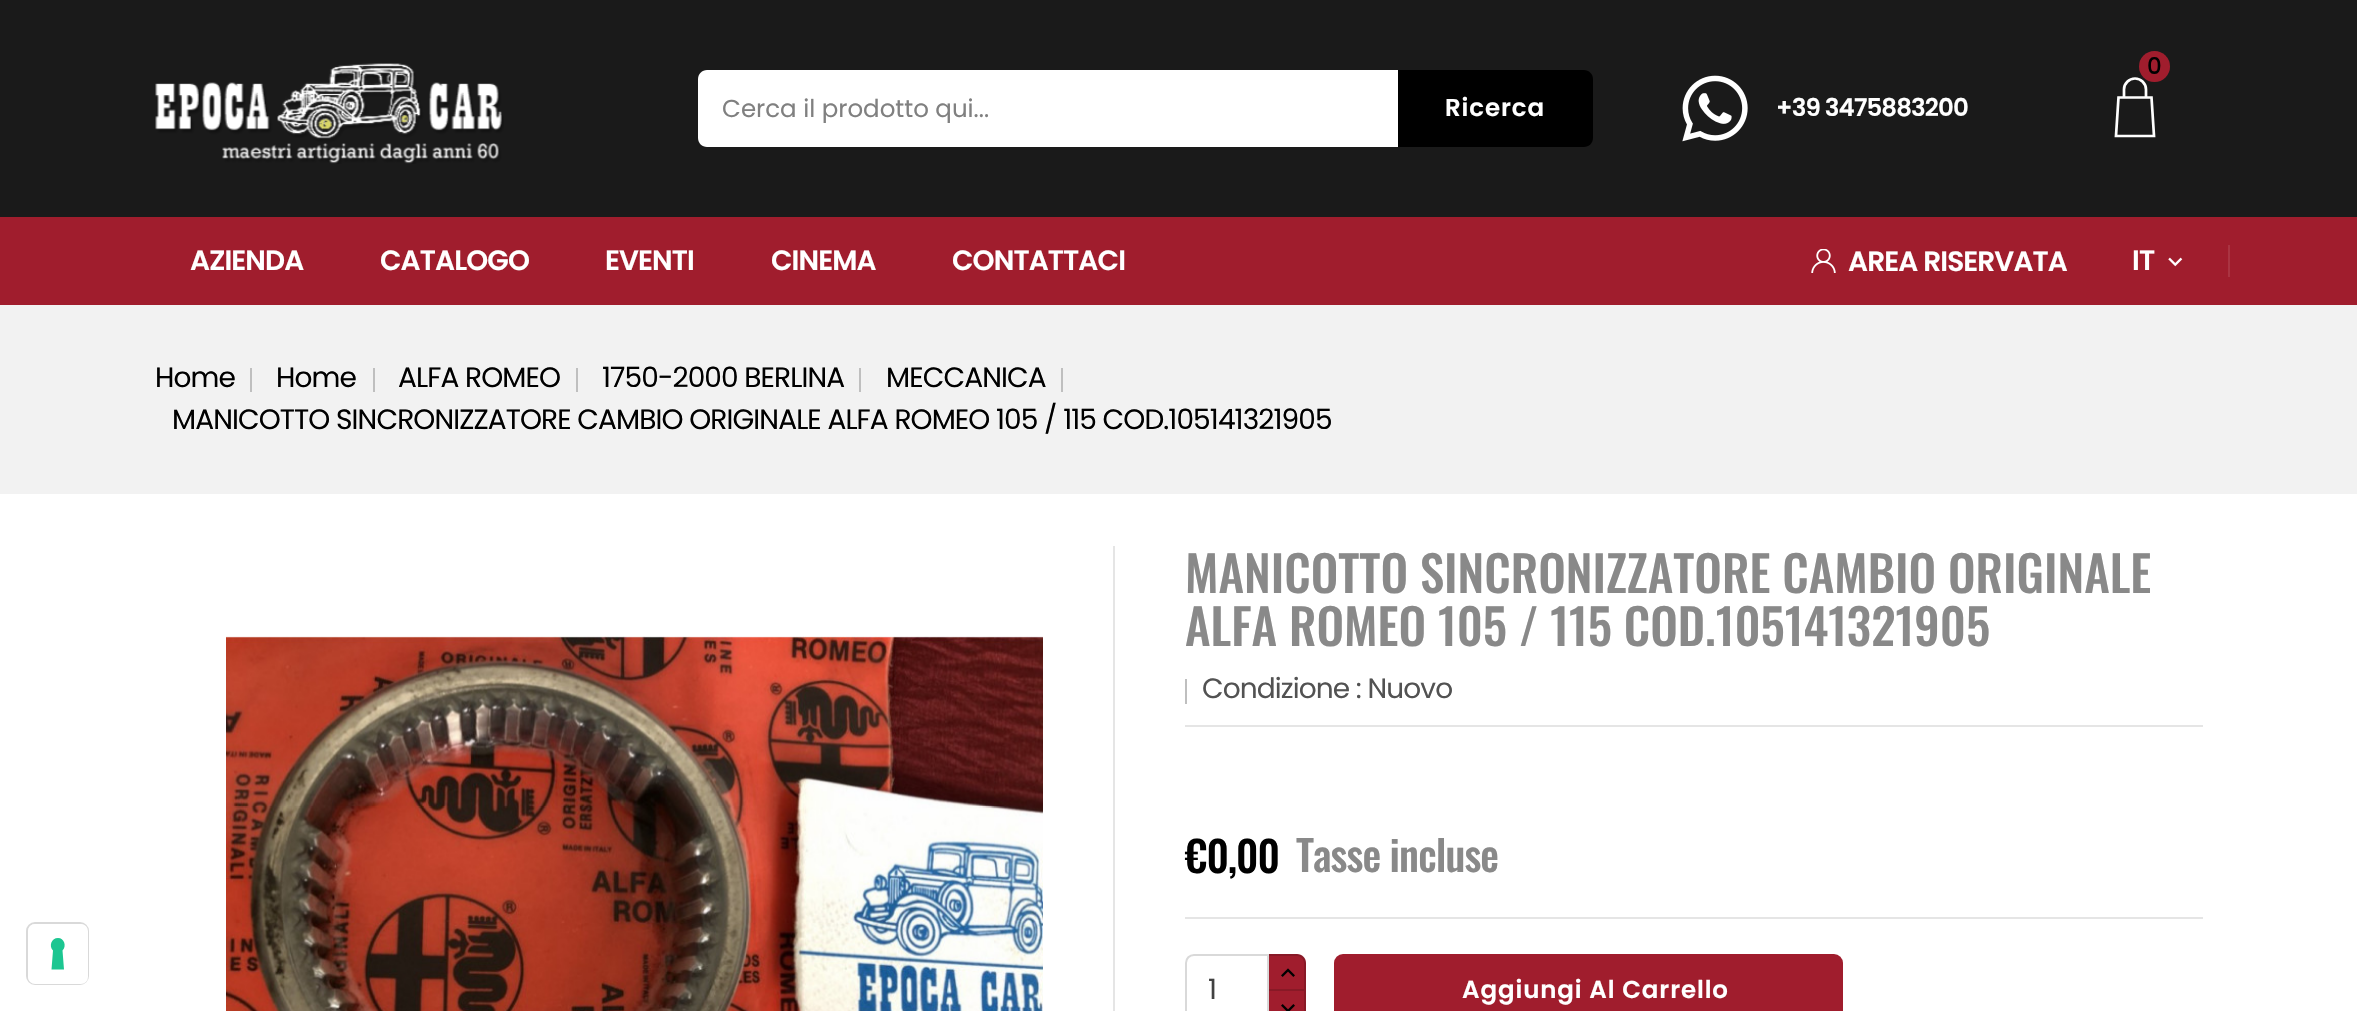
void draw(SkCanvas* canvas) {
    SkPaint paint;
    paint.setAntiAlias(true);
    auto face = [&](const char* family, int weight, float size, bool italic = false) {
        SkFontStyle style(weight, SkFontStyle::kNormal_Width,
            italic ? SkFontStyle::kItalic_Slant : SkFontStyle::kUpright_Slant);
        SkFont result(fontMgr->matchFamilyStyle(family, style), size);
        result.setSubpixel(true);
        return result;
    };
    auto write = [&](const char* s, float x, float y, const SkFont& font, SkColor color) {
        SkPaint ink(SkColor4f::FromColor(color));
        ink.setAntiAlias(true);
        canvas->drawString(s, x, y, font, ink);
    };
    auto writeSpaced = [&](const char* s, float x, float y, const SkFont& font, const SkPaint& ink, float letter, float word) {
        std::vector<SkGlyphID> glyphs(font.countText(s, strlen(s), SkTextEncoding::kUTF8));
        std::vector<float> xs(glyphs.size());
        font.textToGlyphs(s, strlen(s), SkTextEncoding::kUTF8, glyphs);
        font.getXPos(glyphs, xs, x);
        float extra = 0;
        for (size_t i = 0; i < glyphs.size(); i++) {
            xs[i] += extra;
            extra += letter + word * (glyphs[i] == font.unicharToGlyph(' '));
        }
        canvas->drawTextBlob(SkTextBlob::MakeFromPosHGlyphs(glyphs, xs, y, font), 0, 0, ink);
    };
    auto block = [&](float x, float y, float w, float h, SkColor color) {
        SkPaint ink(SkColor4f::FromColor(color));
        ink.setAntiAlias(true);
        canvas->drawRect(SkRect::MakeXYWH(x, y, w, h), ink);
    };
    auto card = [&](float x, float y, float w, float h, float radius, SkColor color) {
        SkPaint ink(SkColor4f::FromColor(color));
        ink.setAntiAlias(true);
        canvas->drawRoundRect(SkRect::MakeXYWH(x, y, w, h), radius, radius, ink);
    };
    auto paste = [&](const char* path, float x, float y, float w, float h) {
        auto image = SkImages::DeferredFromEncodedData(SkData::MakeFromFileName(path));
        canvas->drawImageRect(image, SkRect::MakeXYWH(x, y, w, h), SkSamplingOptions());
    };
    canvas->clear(SK_ColorWHITE);
    paint.setStyle(SkPaint::kStroke_Style);
    paint.setStrokeWidth(2);
    paint.setColor(SkColorSetRGB(217, 217, 217));
    canvas->drawRoundRect(SkRect::MakeXYWH(27, 923, 61, 61), 8, 8, paint);
    card(28, 924, 60, 60, 7, SK_ColorWHITE);
    paint.setStyle(SkPaint::kFill_Style);
    paint.setColor(SkColorSetRGB(28, 198, 145));
    canvas->drawPath(SkPathBuilder(SkPathFillType::kEvenOdd).moveTo(58, 938).cubicTo(64, 938, 67, 946, 62.5f, 950.5f).lineTo(64, 969.5f).lineTo(51.5f, 969.5f).lineTo(53, 950.5f).cubicTo(48.5f, 946, 51.5f, 938, 58, 938).close().detach(), paint);
    block(0, 0, 2357, 217, SkColorSetRGB(26, 26, 26));
    paste("pic1.png", 155, 63, 349, 101);
    paint.setColor(SK_ColorWHITE);
    canvas->drawPath(SkPathBuilder().moveTo(707, 70).lineTo(1398, 70).lineTo(1398, 147).lineTo(707, 147).cubicTo(702, 147, 698, 143, 698, 138).lineTo(698, 79).cubicTo(698, 74, 702, 70, 707, 70).close().detach(), paint);
    canvas->save();
    canvas->clipRect(SkRect::MakeXYWH(723, 98, 651, 25));
    auto kFont1 = face("Poppins", 400, 24.5f);
    write("Cerca il prodotto qui...", 722, 117, kFont1, SkColorSetRGB(128, 128, 128));
    canvas->restore();
    paint.setColor(SK_ColorBLACK);
    canvas->drawPath(SkPathBuilder().moveTo(1398, 70).lineTo(1584, 70).cubicTo(1589, 70, 1593, 74, 1593, 79).lineTo(1593, 138).cubicTo(1593, 143, 1589, 147, 1584, 147).lineTo(1398, 147).close().detach(), paint);
    auto kFont2 = face("Poppins", 600, 24.5f);
    paint.setColor(SK_ColorWHITE);
    writeSpaced("Ricerca", 1445, 116, kFont2, paint, 0.9f, 0);
    paste("pic2.png", 1682, 75, 66, 67);
    writeSpaced("+39 3475883200", 1776, 116, kFont2, paint, -0.88f, 0);
    paint.setStyle(SkPaint::kStroke_Style);
    paint.setStrokeWidth(2.7f);
    canvas->drawPath(SkPathBuilder().moveTo(2118.5f, 97.5f).lineTo(2151.5f, 97.5f).lineTo(2154, 136).lineTo(2116, 136).close().moveTo(2124, 97.5f).lineTo(2124, 89.5f).cubicTo(2124, 83.5f, 2129, 78.5f, 2135, 78.5f).cubicTo(2141, 78.5f, 2146, 83.5f, 2146, 89.5f).lineTo(2146, 97.5f).detach(), paint);
    paint.setStyle(SkPaint::kFill_Style);
    paint.setColor(SkColorSetRGB(160, 29, 45));
    canvas->drawCircle(2154.5f, 66.5f, 15.5f, paint);
    auto kFont3 = face("Poppins", 500, 23);
    paint.setColor(SK_ColorBLACK);
    writeSpaced("0", 2147, 74, kFont3, paint, -0.88f, 0);
    block(0, 217, 2357, 88, SkColorSetRGB(160, 29, 45));
    auto kFont4 = face("Poppins", 600, 28);
    paint.setColor(SK_ColorWHITE);
    writeSpaced("AZIENDA", 190, 270, kFont4, paint, -0.88f, 0);
    writeSpaced("CATALOGO", 380, 270, kFont4, paint, -0.88f, 0);
    writeSpaced("EVENTI", 605, 270, kFont4, paint, -0.88f, 0);
    writeSpaced("CINEMA", 771, 270, kFont4, paint, -0.88f, 0);
    writeSpaced("CONTATTACI", 952, 270, kFont4, paint, -0.88f, 0);
    paste("pic3.png", 1811, 249, 25, 24);
    writeSpaced("AREA RISERVATA", 1848, 271, kFont4, paint, -0.88f, 0);
    writeSpaced("IT", 2132, 270, kFont4, paint, -0.88f, 0);
    paste("pic4.png", 2168, 257, 15, 10);
    block(2228, 245, 2, 32, SkColorSetRGB(170, 52, 66));
    block(0, 305, 2357, 189, SkColorSetRGB(242, 242, 242));
    auto kFont5 = face("Poppins", 400, 28);
    paint.setColor(SK_ColorBLACK);
    writeSpaced("Home", 155, 387, kFont5, paint, -0.88f, 0);
    block(250, 368, 2, 24, SkColorSetRGB(191, 191, 191));
    writeSpaced("Home", 276, 387, kFont5, paint, -0.88f, 0);
    block(373, 368, 2, 24, SkColorSetRGB(191, 191, 191));
    writeSpaced("ALFA ROMEO", 398, 387, kFont5, paint, -0.88f, 0);
    block(576, 368, 2, 24, SkColorSetRGB(191, 191, 191));
    writeSpaced("1750-2000 BERLINA", 602, 387, kFont5, paint, -0.88f, 0);
    block(859, 368, 2, 24, SkColorSetRGB(191, 191, 191));
    writeSpaced("MECCANICA", 886, 387, kFont5, paint, -0.88f, 0);
    block(1061, 368, 2, 24, SkColorSetRGB(191, 191, 191));
    writeSpaced("MANICOTTO SINCRONIZZATORE CAMBIO ORIGINALE ALFA ROMEO 105 / 115 COD.105141321905", 172, 429, kFont5, paint, -0.88f, 0);
    paste("pic5.png", 226, 636, 817, 375);
    block(1113, 546, 2, 465, SkColorSetRGB(229, 229, 229));
    auto kFont6 = face("Oswald", 500, 49);
    write("MANICOTTO SINCRONIZZATORE CAMBIO ORIGINALE", 1185, 593, kFont6, SkColorSetRGB(137, 137, 137));
    write("ALFA ROMEO 105 / 115 COD.105141321905", 1185, 646, kFont6, SkColorSetRGB(137, 137, 137));
    block(1185, 725, 1018, 2, SkColorSetRGB(229, 229, 229));
    block(1185, 679, 2, 25, SkColorSetRGB(191, 191, 191));
    paint.setColor(SkColorSetRGB(82, 82, 82));
    writeSpaced("Condizione : Nuovo", 1202, 698, kFont5, paint, -0.88f, 0);
    auto kFont7 = face("Oswald", 500, 42);
    paint.setColor(SK_ColorBLACK);
    writeSpaced("€0,00", 1185, 873, kFont7, paint, -0.88f, 0);
    paint.setColor(SkColorSetRGB(137, 137, 137));
    writeSpaced("Tasse incluse", 1296, 872, kFont7, paint, -0.88f, 0);
    block(1185, 917, 1018, 2, SkColorSetRGB(229, 229, 229));
    paint.setColor(SkColorSetRGB(160, 29, 45));
    canvas->drawPath(SkPathBuilder().moveTo(1267, 954).lineTo(1297, 954).cubicTo(1302, 954, 1306, 958, 1306, 963).lineTo(1306, 992).lineTo(1267, 992).close().detach(), paint);
    paint.setStyle(SkPaint::kStroke_Style);
    paint.setStrokeWidth(2);
    paint.setColor(SkColorSetARGB(38, 0, 0, 0));
    canvas->drawPath(SkPathBuilder().moveTo(1268, 955).lineTo(1297, 955).cubicTo(1301.5f, 955, 1305, 958.5f, 1305, 963).lineTo(1305, 991).lineTo(1268, 991).close().detach(), paint);
    paint.setStyle(SkPaint::kFill_Style);
    paint.setColor(SkColorSetRGB(160, 29, 45));
    canvas->drawRect(SkRect::MakeXYWH(1268, 990, 37, 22), paint);
    paint.setStyle(SkPaint::kStroke_Style);
    paint.setColor(SkColorSetRGB(136, 25, 38));
    canvas->drawRect(SkRect::MakeXYWH(1268, 990, 37, 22), paint);
    paint.setStyle(SkPaint::kFill_Style);
    paint.setColor(SK_ColorWHITE);
    canvas->drawPath(SkPathBuilder().moveTo(1194, 955).lineTo(1268, 955).lineTo(1268, 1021).lineTo(1194, 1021).cubicTo(1189.5f, 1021, 1186, 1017.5f, 1186, 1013).lineTo(1186, 963).cubicTo(1186, 958.5f, 1189.5f, 955, 1194, 955).close().detach(), paint);
    paint.setStyle(SkPaint::kStroke_Style);
    paint.setColor(SkColorSetRGB(217, 217, 217));
    canvas->drawPath(SkPathBuilder().moveTo(1194, 955).lineTo(1268, 955).lineTo(1268, 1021).lineTo(1194, 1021).cubicTo(1189.5f, 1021, 1186, 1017.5f, 1186, 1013).lineTo(1186, 963).cubicTo(1186, 958.5f, 1189.5f, 955, 1194, 955).close().detach(), paint);
    write("1", 1208, 999, kFont5, SkColorSetRGB(65, 65, 65));
    paste("pic6.png", 1281, 968, 14, 9);
    paste("pic7.png", 1281, 1004, 14, 7);
    card(1334, 954, 509, 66, 9, SkColorSetRGB(160, 29, 45));
    paint.setStyle(SkPaint::kFill_Style);
    paint.setColor(SK_ColorWHITE);
    writeSpaced("Aggiungi Al Carrello", 1462, 998, kFont2, paint, 0.9f, 0);
}
